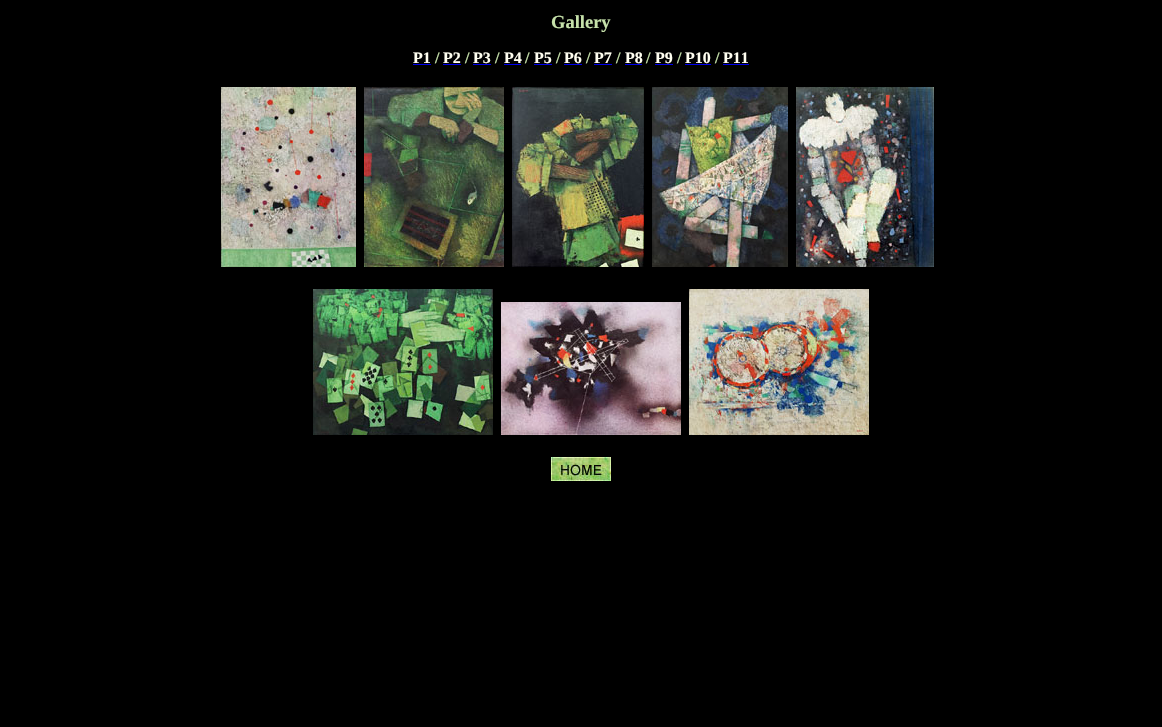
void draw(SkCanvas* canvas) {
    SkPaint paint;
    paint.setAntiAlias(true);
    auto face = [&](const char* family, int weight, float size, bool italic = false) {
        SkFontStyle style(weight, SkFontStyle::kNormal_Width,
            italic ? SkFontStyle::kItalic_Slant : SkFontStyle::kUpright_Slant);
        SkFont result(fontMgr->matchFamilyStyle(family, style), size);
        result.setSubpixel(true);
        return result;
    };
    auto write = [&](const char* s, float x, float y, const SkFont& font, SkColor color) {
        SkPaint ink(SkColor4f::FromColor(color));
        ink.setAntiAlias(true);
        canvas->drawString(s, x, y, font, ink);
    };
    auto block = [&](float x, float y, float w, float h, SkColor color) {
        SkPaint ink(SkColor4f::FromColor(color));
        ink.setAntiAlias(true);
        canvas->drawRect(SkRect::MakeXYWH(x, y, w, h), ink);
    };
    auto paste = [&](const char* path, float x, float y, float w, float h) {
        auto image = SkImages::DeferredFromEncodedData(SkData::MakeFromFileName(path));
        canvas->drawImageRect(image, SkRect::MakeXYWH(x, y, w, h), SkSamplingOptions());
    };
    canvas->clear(SK_ColorBLACK);
    auto kFont1 = face("Liberation Serif", 700, 18.5f);
    write("Gallery", 551, 28, kFont1, SkColorSetRGB(198, 225, 170));
    auto kFont2 = face("Liberation Serif", 700, 16);
    write("P1", 413, 63, kFont2, SkColorSetRGB(255, 254, 240));
    block(413, 64, 18, 1, SkColorSetRGB(0, 0, 238));
    write("/", 435, 63, kFont2, SkColorSetRGB(198, 225, 170));
    write("P2", 443, 63, kFont2, SkColorSetRGB(255, 254, 240));
    block(443, 64, 18, 1, SkColorSetRGB(0, 0, 238));
    write("/", 465, 63, kFont2, SkColorSetRGB(198, 225, 170));
    write("P3", 473, 63, kFont2, SkColorSetRGB(255, 254, 240));
    block(473, 64, 18, 1, SkColorSetRGB(0, 0, 238));
    write("/", 495, 63, kFont2, SkColorSetRGB(198, 225, 170));
    write("P4", 504, 63, kFont2, SkColorSetRGB(255, 254, 240));
    block(504, 64, 17, 1, SkColorSetRGB(0, 0, 238));
    write("/", 525, 63, kFont2, SkColorSetRGB(198, 225, 170));
    write("P5", 534, 63, kFont2, SkColorSetRGB(255, 254, 240));
    block(534, 64, 18, 1, SkColorSetRGB(0, 0, 238));
    write("/", 556, 63, kFont2, SkColorSetRGB(198, 225, 170));
    write("P6", 564, 63, kFont2, SkColorSetRGB(255, 254, 240));
    block(564, 64, 18, 1, SkColorSetRGB(0, 0, 238));
    write("/", 586, 63, kFont2, SkColorSetRGB(198, 225, 170));
    write("P7", 594, 63, kFont2, SkColorSetRGB(255, 254, 240));
    block(594, 64, 18, 1, SkColorSetRGB(0, 0, 238));
    write("/", 616, 63, kFont2, SkColorSetRGB(198, 225, 170));
    write("P8", 625, 63, kFont2, SkColorSetRGB(255, 254, 240));
    block(625, 64, 17, 1, SkColorSetRGB(0, 0, 238));
    write("/", 646, 63, kFont2, SkColorSetRGB(198, 225, 170));
    write("P9", 655, 63, kFont2, SkColorSetRGB(255, 254, 240));
    block(655, 64, 18, 1, SkColorSetRGB(0, 0, 238));
    write("/", 677, 63, kFont2, SkColorSetRGB(198, 225, 170));
    write("P10", 685, 63, kFont2, SkColorSetRGB(255, 254, 240));
    block(685, 64, 26, 1, SkColorSetRGB(0, 0, 238));
    write("/", 715, 63, kFont2, SkColorSetRGB(198, 225, 170));
    write("P11", 723, 63, kFont2, SkColorSetRGB(255, 254, 240));
    block(723, 64, 26, 1, SkColorSetRGB(0, 0, 238));
    paste("pic1.png", 221, 87, 135, 180);
    paste("pic2.png", 364, 87, 140, 180);
    paste("pic3.png", 512, 87, 132, 180);
    paste("pic4.png", 652, 87, 136, 180);
    paste("pic5.png", 796, 87, 138, 180);
    paste("pic6.png", 313, 289, 180, 146);
    paste("pic7.png", 501, 302, 180, 133);
    paste("pic8.png", 689, 289, 180, 146);
    paste("pic9.png", 551, 457, 60, 24);
}
